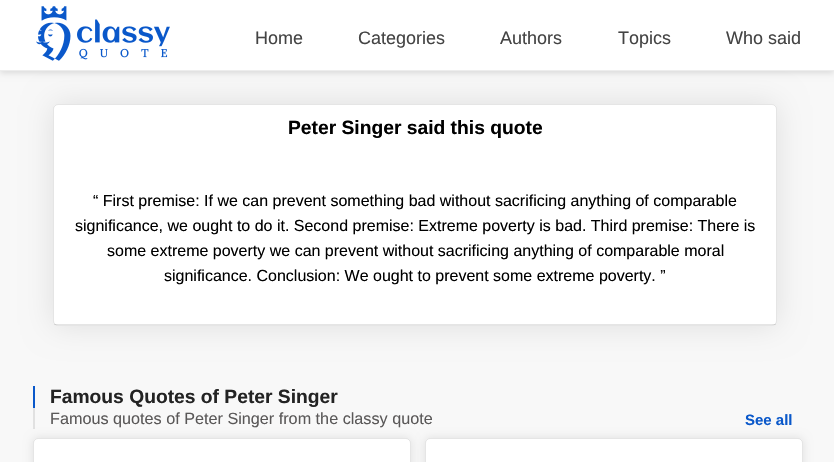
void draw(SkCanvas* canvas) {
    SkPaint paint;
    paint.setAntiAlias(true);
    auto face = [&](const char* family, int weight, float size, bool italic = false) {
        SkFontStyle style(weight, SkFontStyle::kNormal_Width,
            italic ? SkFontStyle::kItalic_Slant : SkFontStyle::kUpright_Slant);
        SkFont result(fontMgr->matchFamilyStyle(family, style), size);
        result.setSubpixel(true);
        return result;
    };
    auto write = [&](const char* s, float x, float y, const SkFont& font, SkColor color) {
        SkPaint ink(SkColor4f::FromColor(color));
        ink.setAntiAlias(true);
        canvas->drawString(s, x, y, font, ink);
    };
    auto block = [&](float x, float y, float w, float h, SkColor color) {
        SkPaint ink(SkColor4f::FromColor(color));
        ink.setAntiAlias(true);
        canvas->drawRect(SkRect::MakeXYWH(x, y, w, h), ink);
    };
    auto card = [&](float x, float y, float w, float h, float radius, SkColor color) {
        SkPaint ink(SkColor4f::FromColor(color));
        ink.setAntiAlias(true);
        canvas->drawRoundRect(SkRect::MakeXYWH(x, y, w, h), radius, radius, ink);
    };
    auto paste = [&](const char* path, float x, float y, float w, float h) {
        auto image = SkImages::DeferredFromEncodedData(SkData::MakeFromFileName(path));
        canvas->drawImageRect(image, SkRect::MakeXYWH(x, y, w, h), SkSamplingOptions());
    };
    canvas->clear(SkColorSetRGB(248, 248, 248));
    paint.setColor(SkColorSetARGB(31, 0, 0, 0));
    paint.setMaskFilter(SkMaskFilter::MakeBlur(kNormal_SkBlurStyle, 3));
    canvas->drawRect(SkRect::MakeXYWH(0, 2, 834, 71), paint);
    paint.setMaskFilter(nullptr);
    paint.setColor(SkColorSetARGB(26, 0, 0, 0));
    paint.setMaskFilter(SkMaskFilter::MakeBlur(kNormal_SkBlurStyle, 15));
    canvas->drawRoundRect(SkRect::MakeXYWH(53, 104, 724, 222), 5, 5, paint);
    paint.setMaskFilter(nullptr);
    block(0, 0, 834, 70, SK_ColorWHITE);
    block(0, 70, 834, 1, SkColorSetRGB(237, 237, 237));
    paste("pic1.png", 36, 6, 134, 55);
    auto kFont1 = face("Liberation Sans", 400, 18);
    write("Home", 255, 44, kFont1, SkColorSetRGB(68, 68, 68));
    write("Categories", 358, 44, kFont1, SkColorSetRGB(68, 68, 68));
    write("Authors", 500, 44, kFont1, SkColorSetRGB(68, 68, 68));
    write("Topics", 618, 44, kFont1, SkColorSetRGB(68, 68, 68));
    write("Who said", 726, 44, kFont1, SkColorSetRGB(68, 68, 68));
    card(53, 104, 724, 222, 5, SK_ColorWHITE);
    paint.setStyle(SkPaint::kStroke_Style);
    paint.setStrokeWidth(1);
    canvas->drawRoundRect(SkRect::MakeXYWH(53.5f, 104.5f, 723, 221), 4.5f, 4.5f, paint);
    auto kFont2 = face("Liberation Sans", 700, 19.25f);
    write("Peter Singer said this quote", 288, 134, kFont2, SK_ColorBLACK);
    block(54, 324, 722, 1, SkColorSetARGB(26, 0, 0, 0));
    auto kFont3 = face("Liberation Sans", 400, 16);
    write("“ First premise: If we can prevent something bad without sacrificing anything of comparable", 93, 206, kFont3, SK_ColorBLACK);
    write("significance, we ought to do it. Second premise: Extreme poverty is bad. Third premise: There is", 75, 231, kFont3, SK_ColorBLACK);
    write("some extreme poverty we can prevent without sacrificing anything of comparable moral", 107, 256, kFont3, SK_ColorBLACK);
    write("significance. Conclusion: We ought to prevent some extreme poverty. ”", 164, 281, kFont3, SK_ColorBLACK);
    block(33, 386, 2, 22, SkColorSetRGB(10, 88, 202));
    write("Famous Quotes of Peter Singer", 50, 403, kFont2, SkColorSetRGB(35, 35, 35));
    block(33, 408, 2, 21, SkColorSetRGB(225, 225, 225));
    auto kFont4 = face("Liberation Sans", 400, 16.2f);
    write("Famous quotes of Peter Singer from the classy quote", 50, 424, kFont4, SkColorSetRGB(90, 88, 88));
    auto kFont5 = face("Liberation Sans", 700, 15);
    write("See all", 745, 425, kFont5, SkColorSetRGB(10, 88, 202));
    paint.setStyle(SkPaint::kFill_Style);
    paint.setMaskFilter(SkMaskFilter::MakeBlur(kNormal_SkBlurStyle, 5));
    canvas->drawRoundRect(SkRect::MakeXYWH(33, 438, 378, 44), 5, 5, paint);
    paint.setMaskFilter(nullptr);
    card(33, 438, 378, 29, 5, SK_ColorWHITE);
    paint.setStyle(SkPaint::kStroke_Style);
    canvas->drawRoundRect(SkRect::MakeXYWH(33.5f, 438.5f, 377, 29), 4.5f, 4.5f, paint);
    paint.setStyle(SkPaint::kFill_Style);
    paint.setMaskFilter(SkMaskFilter::MakeBlur(kNormal_SkBlurStyle, 5));
    canvas->drawRoundRect(SkRect::MakeXYWH(425, 438, 378, 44), 5, 5, paint);
    paint.setMaskFilter(nullptr);
    card(425, 438, 378, 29, 5, SK_ColorWHITE);
    paint.setStyle(SkPaint::kStroke_Style);
    canvas->drawRoundRect(SkRect::MakeXYWH(425.5f, 438.5f, 377, 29), 4.5f, 4.5f, paint);
}
